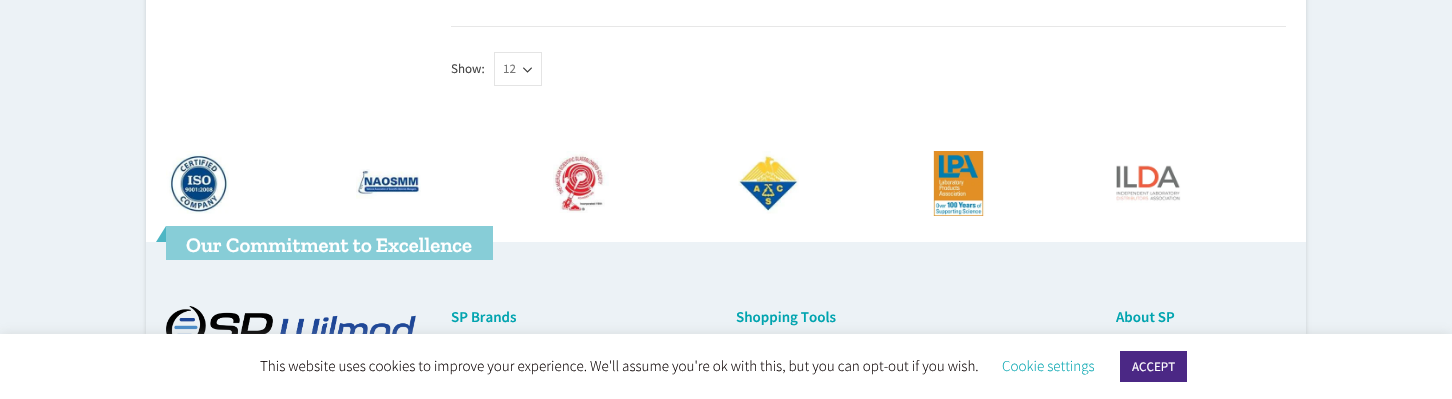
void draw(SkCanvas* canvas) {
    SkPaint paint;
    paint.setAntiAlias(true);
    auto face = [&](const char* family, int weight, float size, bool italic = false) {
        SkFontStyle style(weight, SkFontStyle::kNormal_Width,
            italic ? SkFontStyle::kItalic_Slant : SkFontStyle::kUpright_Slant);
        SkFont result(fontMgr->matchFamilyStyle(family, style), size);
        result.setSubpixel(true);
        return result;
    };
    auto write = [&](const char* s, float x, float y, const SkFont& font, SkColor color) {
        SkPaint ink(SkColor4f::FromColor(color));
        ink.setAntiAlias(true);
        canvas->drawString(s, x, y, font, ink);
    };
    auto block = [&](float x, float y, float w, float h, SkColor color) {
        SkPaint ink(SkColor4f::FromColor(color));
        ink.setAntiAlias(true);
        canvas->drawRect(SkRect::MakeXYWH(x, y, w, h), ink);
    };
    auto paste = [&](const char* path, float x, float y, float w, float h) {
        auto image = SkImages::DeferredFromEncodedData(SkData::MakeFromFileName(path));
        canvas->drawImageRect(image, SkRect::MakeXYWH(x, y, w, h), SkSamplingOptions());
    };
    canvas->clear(SkColorSetRGB(236, 242, 246));
    paint.setColor(SkColorSetARGB(38, 0, 0, 0));
    paint.setMaskFilter(SkMaskFilter::MakeBlur(kNormal_SkBlurStyle, 2));
    canvas->drawRect(SkRect::MakeXYWH(146, -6, 1160, 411), paint);
    paint.setMaskFilter(nullptr);
    block(146, 0, 1160, 242, SK_ColorWHITE);
    block(451, 26, 835, 1, SkColorSetRGB(231, 231, 231));
    auto kFont1 = face("Source Sans Pro", 400, 13);
    write("Show:", 451, 73, kFont1, SkColorSetRGB(68, 68, 68));
    paste("pic1.png", 523, 67, 9, 6);
    paint.setStyle(SkPaint::kStroke_Style);
    paint.setStrokeWidth(1);
    paint.setColor(SkColorSetRGB(228, 228, 228));
    canvas->drawRect(SkRect::MakeXYWH(494.5f, 52.5f, 47, 33), paint);
    write("12", 503, 73, kFont1, SkColorSetRGB(119, 119, 119));
    paste("pic2.png", 166, 151, 63, 63);
    paste("pic3.png", 356, 169, 65, 30);
    paste("pic4.png", 553, 151, 56, 62);
    paste("pic5.png", 738, 151, 61, 63);
    paste("pic6.png", 933, 151, 52, 65);
    paste("pic7.png", 1116, 165, 65, 38);
    block(146, 242, 1160, 92, SkColorSetRGB(236, 242, 246));
    block(166, 226, 327, 34, SkColorSetRGB(135, 205, 215));
    paint.setStyle(SkPaint::kFill_Style);
    paint.setColor(SkColorSetRGB(78, 182, 196));
    canvas->drawPath(SkPathBuilder().moveTo(166, 226).lineTo(166, 242).lineTo(156, 242).close().detach(), paint);
    auto kFont2 = face("Zilla Slab", 600, 20.75f);
    write("Our Commitment to Excellence", 186, 252, kFont2, SK_ColorWHITE);
    paste("pic8.png", 166, 306, 250, 28);
    auto kFont3 = face("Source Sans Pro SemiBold", 600, 15);
    write("SP Brands", 451, 322, kFont3, SkColorSetRGB(0, 164, 175));
    write("Shopping Tools", 736, 322, kFont3, SkColorSetRGB(0, 164, 175));
    write("About SP", 1116, 322, kFont3, SkColorSetRGB(0, 164, 175));
    paint.setColor(SkColorSetARGB(77, 172, 171, 171));
    paint.setMaskFilter(SkMaskFilter::MakeBlur(kNormal_SkBlurStyle, 5));
    canvas->drawRect(SkRect::MakeXYWH(0, 333, 1452, 65), paint);
    paint.setMaskFilter(nullptr);
    block(0, 334, 1452, 65, SK_ColorWHITE);
    auto kFont4 = face("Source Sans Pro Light", 300, 15);
    write("This website uses cookies to improve your experience. We'll assume you're ok with this, but you can opt-out if you wish.", 260, 371, kFont4, SkColorSetRGB(10, 1, 1));
    write("Cookie settings", 1002, 371, kFont4, SkColorSetRGB(0, 164, 175));
    block(1120, 351, 67, 31, SkColorSetRGB(75, 40, 133));
    write("ACCEPT", 1132, 371, kFont1, SK_ColorWHITE);
}
